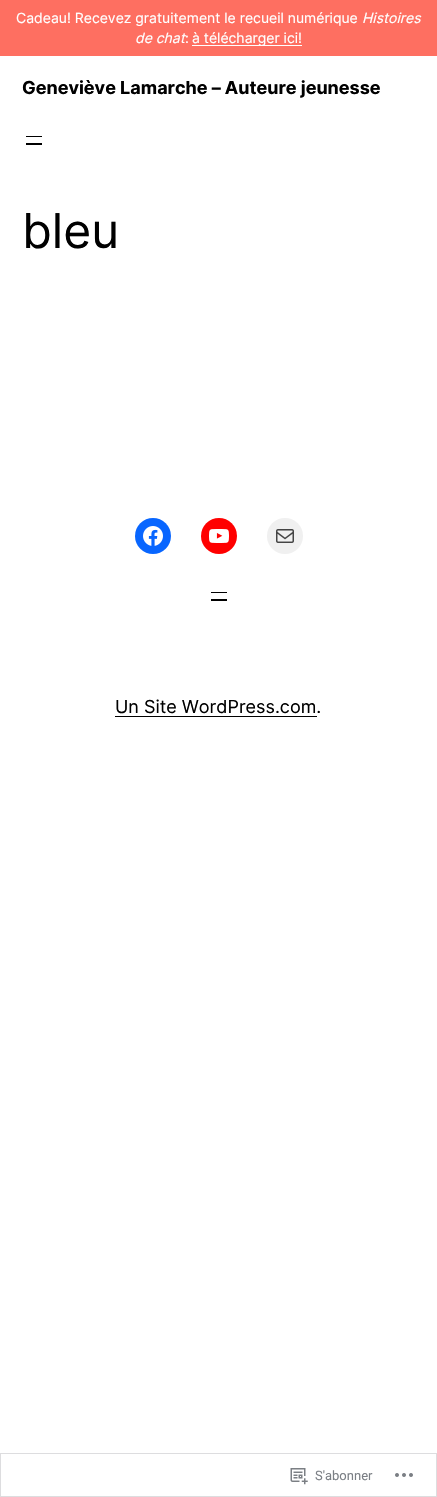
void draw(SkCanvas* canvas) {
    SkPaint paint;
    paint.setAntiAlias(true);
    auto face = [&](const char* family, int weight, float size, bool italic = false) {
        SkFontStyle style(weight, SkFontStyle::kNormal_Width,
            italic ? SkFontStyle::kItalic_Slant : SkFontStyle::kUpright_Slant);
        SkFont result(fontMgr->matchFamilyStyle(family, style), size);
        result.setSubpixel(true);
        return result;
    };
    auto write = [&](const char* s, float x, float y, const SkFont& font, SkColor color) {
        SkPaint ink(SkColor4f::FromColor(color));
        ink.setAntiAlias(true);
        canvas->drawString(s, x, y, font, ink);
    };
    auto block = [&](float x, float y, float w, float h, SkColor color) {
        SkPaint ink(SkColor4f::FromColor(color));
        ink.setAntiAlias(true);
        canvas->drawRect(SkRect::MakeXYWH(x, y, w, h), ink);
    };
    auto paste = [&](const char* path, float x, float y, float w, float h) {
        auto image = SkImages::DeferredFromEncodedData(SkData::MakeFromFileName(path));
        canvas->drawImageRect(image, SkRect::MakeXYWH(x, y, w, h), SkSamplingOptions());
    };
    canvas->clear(SK_ColorWHITE);
    block(0, 0, 437, 56, SkColorSetRGB(254, 111, 97));
    auto kFont1 = face("Inter", 400, 14);
    write("Cadeau! Recevez gratuitement le recueil numérique", 16, 23, kFont1, SK_ColorWHITE);
    auto kFont2 = face("Inter", 400, 14, true);
    write("Histoires", 362, 23, kFont2, SK_ColorWHITE);
    write("de chat", 135, 43, kFont2, SK_ColorWHITE);
    write(":", 185, 43, kFont1, SK_ColorWHITE);
    block(192, 45, 110, 1, SK_ColorWHITE);
    write("à télécharger ici!", 192, 43, kFont1, SK_ColorWHITE);
    auto kFont3 = face("Inter", 700, 18);
    write("Geneviève Lamarche – Auteure jeunesse", 22, 94, kFont3, SK_ColorBLACK);
    block(26, 136, 16, 1, SK_ColorBLACK);
    block(26, 143, 16, 2, SK_ColorBLACK);
    auto kFont4 = face("Inter", 400, 48);
    write("bleu", 22, 248, kFont4, SK_ColorBLACK);
    paint.setColor(SkColorSetRGB(8, 102, 255));
    canvas->drawCircle(153, 536, 18, paint);
    paste("pic1.png", 143, 526, 20, 20);
    paint.setColor(SkColorSetRGB(255, 0, 0));
    canvas->drawCircle(219, 536, 18, paint);
    paste("pic2.png", 209, 529, 20, 14);
    paint.setColor(SkColorSetRGB(240, 240, 240));
    canvas->drawCircle(285, 536, 18, paint);
    paste("pic3.png", 276, 529, 18, 14);
    block(211, 592, 16, 1, SK_ColorBLACK);
    block(211, 599, 16, 2, SK_ColorBLACK);
    auto kFont5 = face("Inter", 400, 18);
    write("Un Site WordPress.com.", 115, 713, kFont5, SK_ColorBLACK);
    block(115, 716, 202, 1, SK_ColorBLACK);
    paint.setStyle(SkPaint::kStroke_Style);
    paint.setStrokeWidth(1);
    paint.setColor(SkColorSetRGB(221, 221, 223));
    canvas->drawRect(SkRect::MakeXYWH(0.5f, 1453.5f, 436, 43), paint);
    paste("pic4.png", 290, 1468, 18, 17);
    auto kFont6 = face("Roboto", 400, 13);
    write("S'abonner", 315, 1480, kFont6, SkColorSetRGB(123, 127, 133));
    paste("pic5.png", 395, 1473, 18, 4);
}
